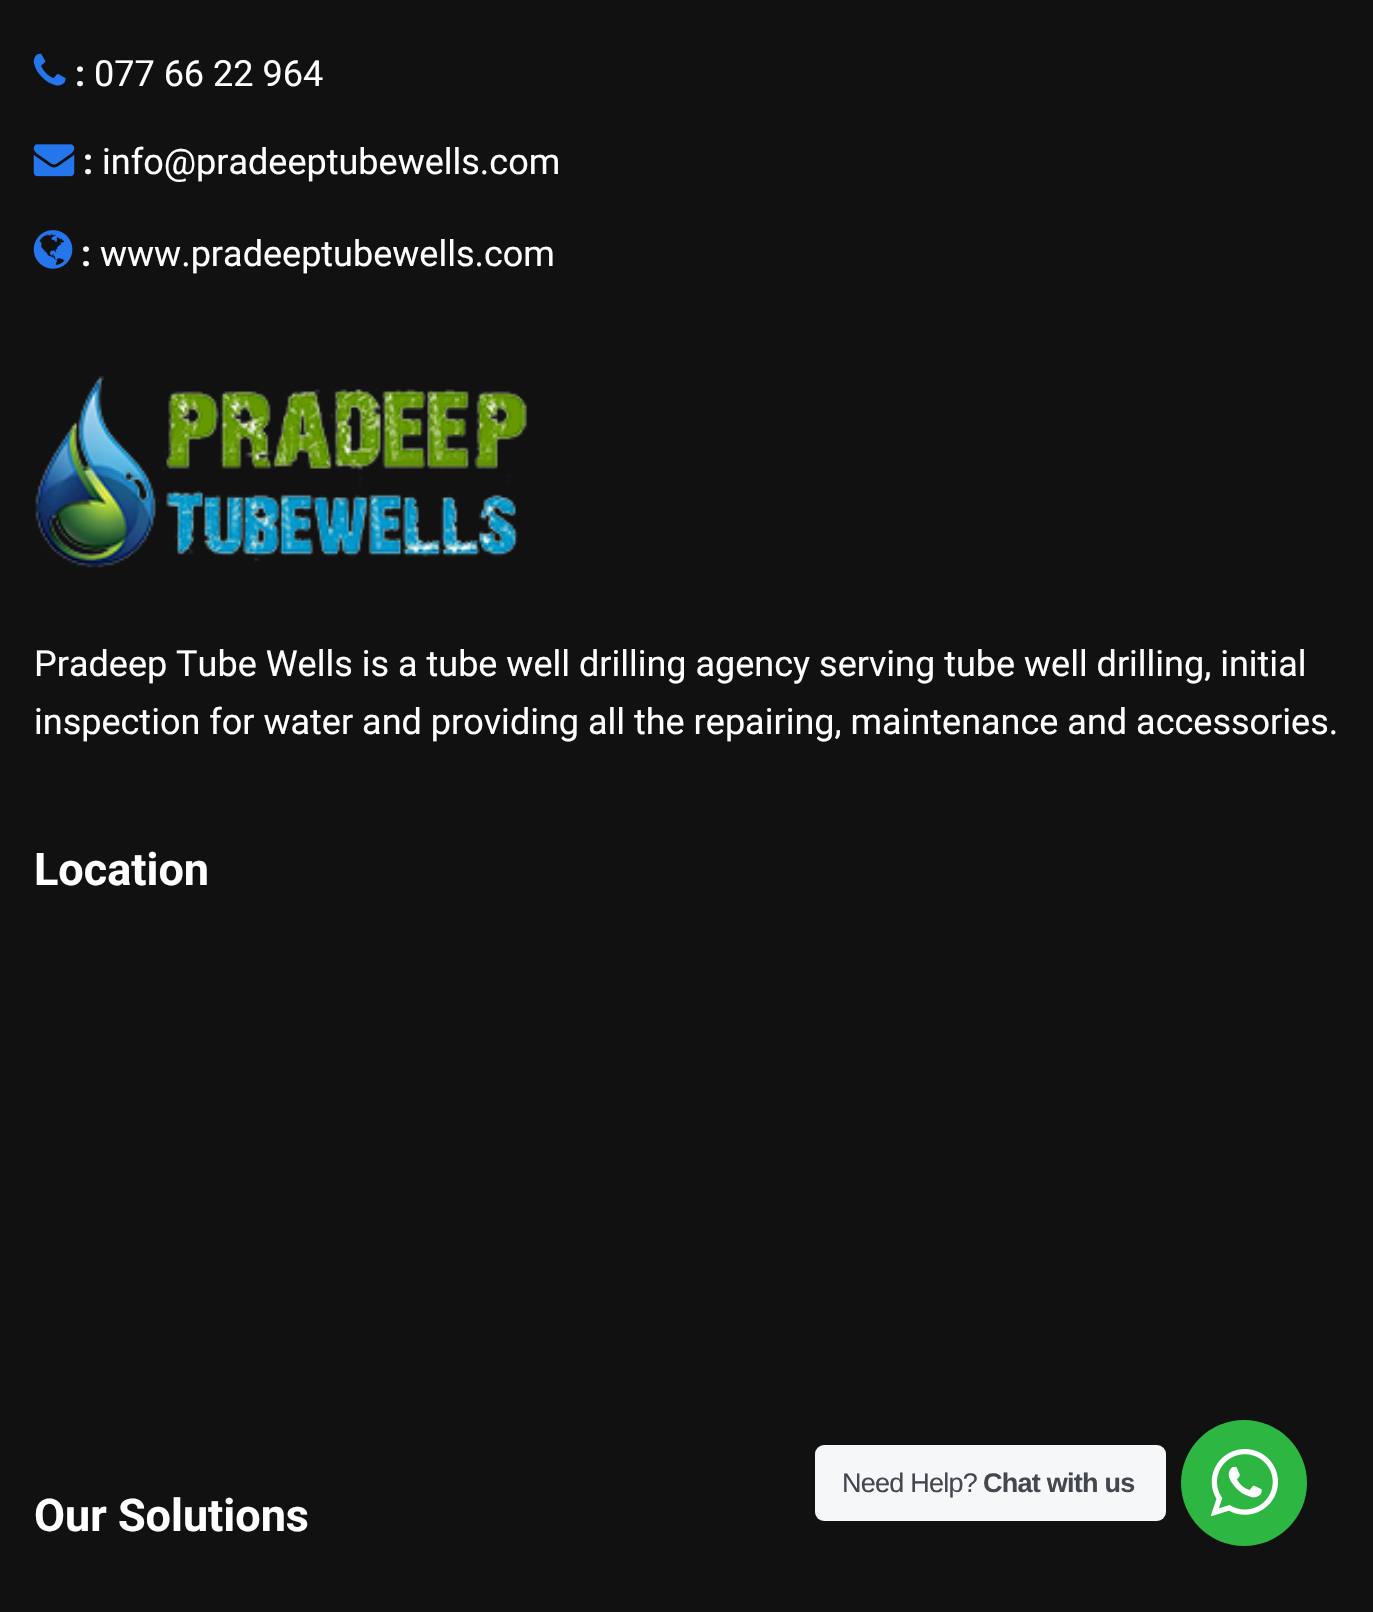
void draw(SkCanvas* canvas) {
    SkPaint paint;
    paint.setAntiAlias(true);
    auto face = [&](const char* family, int weight, float size, bool italic = false) {
        SkFontStyle style(weight, SkFontStyle::kNormal_Width,
            italic ? SkFontStyle::kItalic_Slant : SkFontStyle::kUpright_Slant);
        SkFont result(fontMgr->matchFamilyStyle(family, style), size);
        result.setSubpixel(true);
        return result;
    };
    auto write = [&](const char* s, float x, float y, const SkFont& font, SkColor color) {
        SkPaint ink(SkColor4f::FromColor(color));
        ink.setAntiAlias(true);
        canvas->drawString(s, x, y, font, ink);
    };
    auto writeSpaced = [&](const char* s, float x, float y, const SkFont& font, const SkPaint& ink, float letter, float word) {
        std::vector<SkGlyphID> glyphs(font.countText(s, strlen(s), SkTextEncoding::kUTF8));
        std::vector<float> xs(glyphs.size());
        font.textToGlyphs(s, strlen(s), SkTextEncoding::kUTF8, glyphs);
        font.getXPos(glyphs, xs, x);
        float extra = 0;
        for (size_t i = 0; i < glyphs.size(); i++) {
            xs[i] += extra;
            extra += letter + word * (glyphs[i] == font.unicharToGlyph(' '));
        }
        canvas->drawTextBlob(SkTextBlob::MakeFromPosHGlyphs(glyphs, xs, y, font), 0, 0, ink);
    };
    auto card = [&](float x, float y, float w, float h, float radius, SkColor color) {
        SkPaint ink(SkColor4f::FromColor(color));
        ink.setAntiAlias(true);
        canvas->drawRoundRect(SkRect::MakeXYWH(x, y, w, h), radius, radius, ink);
    };
    auto paste = [&](const char* path, float x, float y, float w, float h) {
        auto image = SkImages::DeferredFromEncodedData(SkData::MakeFromFileName(path));
        canvas->drawImageRect(image, SkRect::MakeXYWH(x, y, w, h), SkSamplingOptions());
    };
    canvas->clear(SkColorSetRGB(17, 17, 17));
    paste("pic1.png", 33, 53, 33, 33);
    auto kFont1 = face("Roboto", 700, 36);
    write(":", 75, 86, kFont1, SK_ColorWHITE);
    auto kFont2 = face("Roboto", 400, 36);
    write("077 66 22 964", 94, 86, kFont2, SK_ColorWHITE);
    paste("pic2.png", 33, 144, 42, 33);
    write(":", 83, 174, kFont1, SK_ColorWHITE);
    write("info@pradeeptubewells.com", 102, 174, kFont2, SK_ColorWHITE);
    paste("pic3.png", 33, 230, 40, 39);
    write(":", 81, 266, kFont1, SK_ColorWHITE);
    write("www.pradeeptubewells.com", 100, 266, kFont2, SK_ColorWHITE);
    paste("pic4.png", 35, 376, 493, 192);
    write("Pradeep Tube Wells is a tube well drilling agency serving tube well drilling, initial", 34, 676, kFont2, SK_ColorWHITE);
    write("inspection for water and providing all the repairing, maintenance and accessories.", 34, 734, kFont2, SK_ColorWHITE);
    auto kFont3 = face("Roboto", 700, 45);
    write("Location", 34, 885, kFont3, SK_ColorWHITE);
    write("Our Solutions", 34, 1531, kFont3, SK_ColorWHITE);
    card(815, 1445, 351, 76, 9, SkColorSetRGB(245, 247, 249));
    auto kFont4 = face("Liberation Sans", 400, 27);
    paint.setColor(SkColorSetRGB(67, 71, 78));
    writeSpaced("Need Help?", 842, 1492, kFont4, paint, -0.75f, 0);
    auto kFont5 = face("Liberation Sans", 700, 27);
    writeSpaced("Chat with us", 983, 1492, kFont5, paint, -0.75f, 0);
    paint.setColor(SkColorSetRGB(45, 183, 66));
    canvas->drawCircle(1244, 1483, 63, paint);
    paste("pic5.png", 1211, 1449, 67, 68);
}
